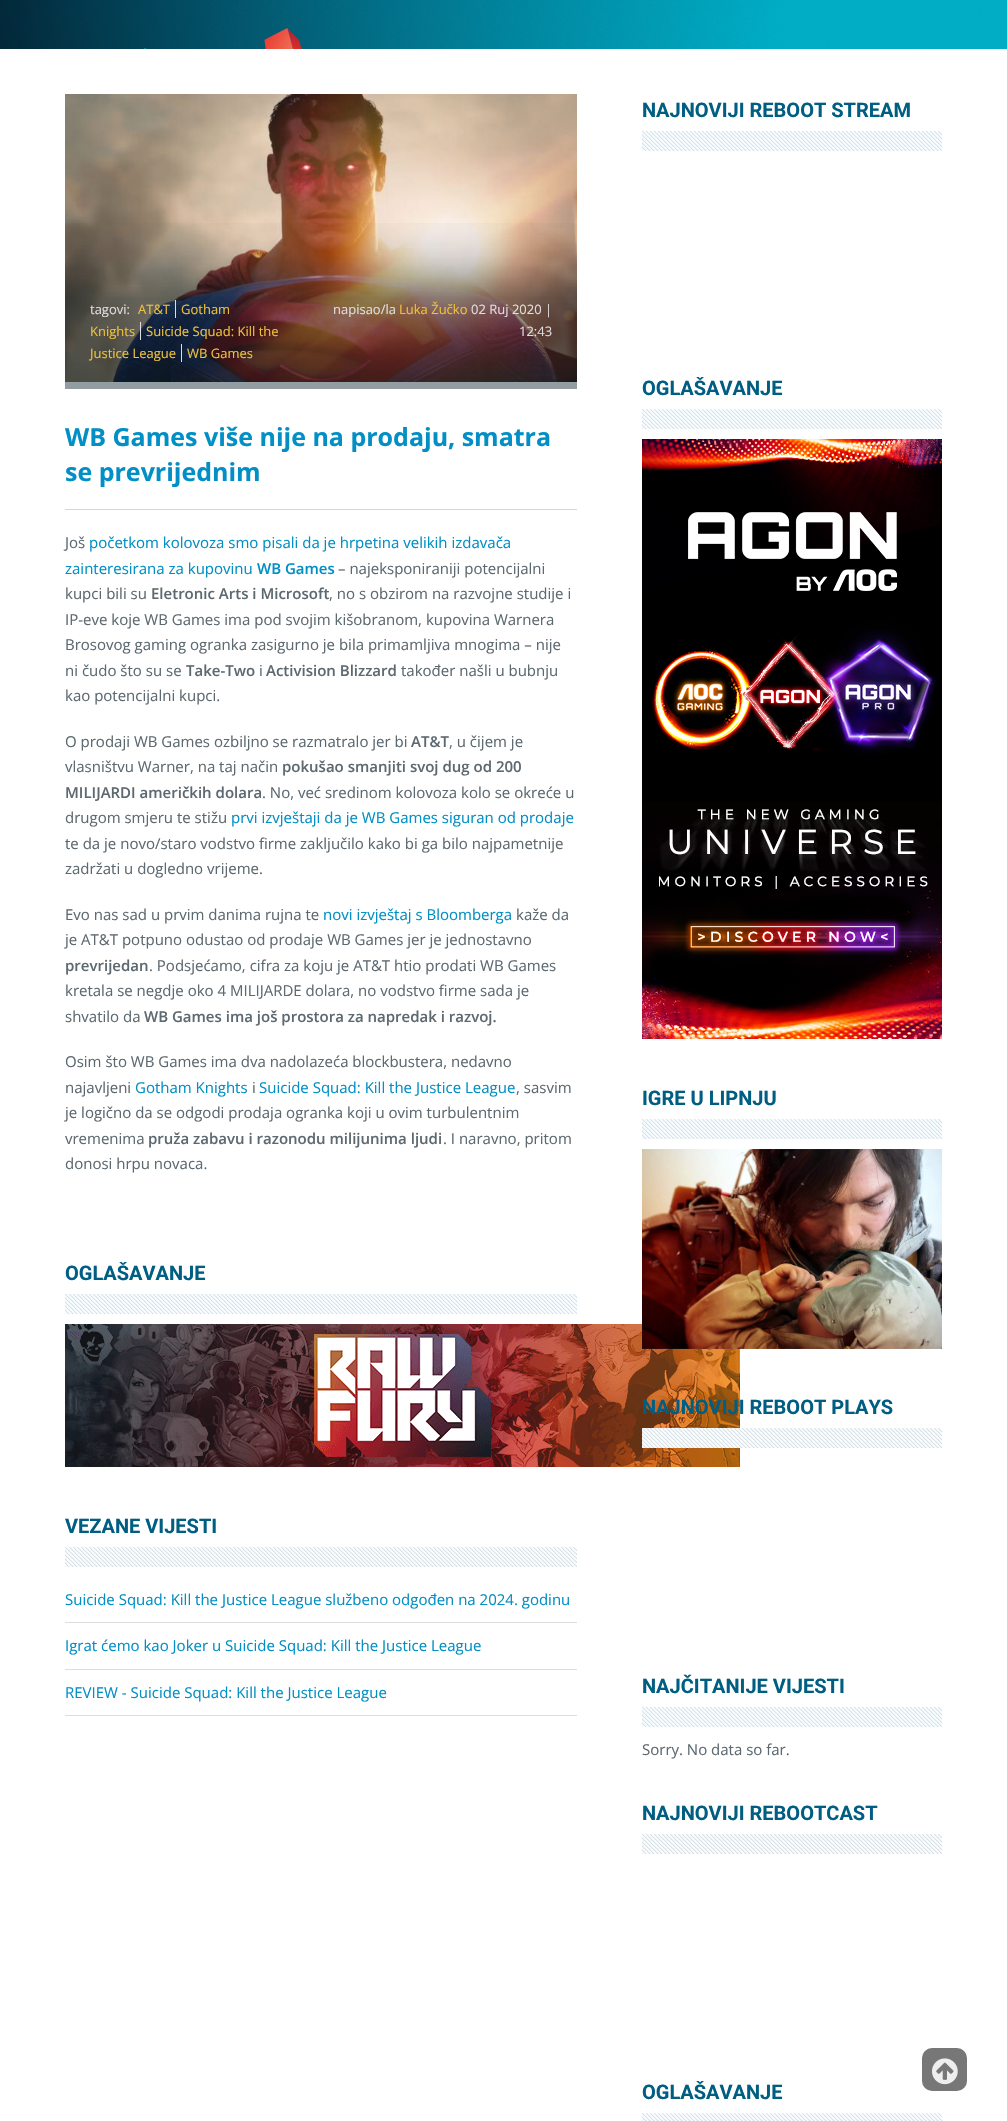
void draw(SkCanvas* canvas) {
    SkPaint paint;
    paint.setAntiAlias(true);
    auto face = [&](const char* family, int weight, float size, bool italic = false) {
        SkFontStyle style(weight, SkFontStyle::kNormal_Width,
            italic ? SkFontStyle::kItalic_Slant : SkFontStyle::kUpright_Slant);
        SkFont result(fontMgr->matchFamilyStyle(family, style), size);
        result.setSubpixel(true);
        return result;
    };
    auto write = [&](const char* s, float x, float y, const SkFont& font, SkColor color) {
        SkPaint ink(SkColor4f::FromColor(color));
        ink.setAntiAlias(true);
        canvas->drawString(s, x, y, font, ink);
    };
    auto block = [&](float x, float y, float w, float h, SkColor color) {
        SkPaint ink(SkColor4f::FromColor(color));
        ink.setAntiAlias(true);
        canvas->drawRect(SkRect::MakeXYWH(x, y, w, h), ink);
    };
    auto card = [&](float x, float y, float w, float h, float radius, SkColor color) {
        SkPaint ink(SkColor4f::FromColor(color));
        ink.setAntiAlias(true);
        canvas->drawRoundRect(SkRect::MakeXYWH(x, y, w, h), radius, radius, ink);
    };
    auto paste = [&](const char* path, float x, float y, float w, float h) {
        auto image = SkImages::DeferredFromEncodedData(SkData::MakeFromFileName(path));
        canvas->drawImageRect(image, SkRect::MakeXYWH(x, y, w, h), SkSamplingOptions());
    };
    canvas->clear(SK_ColorWHITE);
    paste("pic1.png", 0, 0, 1007, 49);
    paste("pic2.png", 65, 94, 512, 288);
    paste("pic3.png", 65, 223, 512, 166);
    auto kFont1 = face("Open Sans", 400, 13);
    write("tagovi:", 90, 314, kFont1, SkColorSetRGB(222, 222, 222));
    write("AT&T", 138, 314, kFont1, SkColorSetRGB(237, 192, 60));
    block(175, 300, 1, 18, SkColorSetRGB(222, 222, 222));
    write("Gotham", 181, 314, kFont1, SkColorSetRGB(237, 192, 60));
    write("Knights", 90, 336, kFont1, SkColorSetRGB(237, 192, 60));
    block(140, 322, 1, 18, SkColorSetRGB(222, 222, 222));
    write("Suicide Squad: Kill the", 146, 336, kFont1, SkColorSetRGB(237, 192, 60));
    write("Justice League", 90, 358, kFont1, SkColorSetRGB(237, 192, 60));
    block(181, 344, 1, 18, SkColorSetRGB(222, 222, 222));
    write("WB Games", 187, 358, kFont1, SkColorSetRGB(237, 192, 60));
    write("napisao/la", 333, 314, kFont1, SkColorSetRGB(222, 222, 222));
    write("Luka Žučko", 399, 314, kFont1, SkColorSetRGB(237, 192, 60));
    write("02 Ruj 2020 |", 471, 314, kFont1, SkColorSetRGB(222, 222, 222));
    write("12:43", 519, 336, kFont1, SkColorSetRGB(222, 222, 222));
    auto kFont2 = face("Open Sans", 700, 25);
    write("WB Games više nije na prodaju, smatra", 65, 446, kFont2, SkColorSetRGB(1, 143, 197));
    write("se prevrijednim", 65, 481, kFont2, SkColorSetRGB(1, 143, 197));
    block(65, 509, 512, 1, SkColorSetRGB(190, 220, 236));
    auto kFont3 = face("Open Sans", 400, 15);
    write("Još", 65, 548, kFont3, SkColorSetRGB(93, 105, 112));
    write("početkom kolovoza smo pisali da je hrpetina velikih izdavača", 89, 548, kFont3, SkColorSetRGB(1, 143, 197));
    write("zainteresirana za kupovinu", 65, 574, kFont3, SkColorSetRGB(1, 143, 197));
    auto kFont4 = face("Open Sans", 600, 15);
    write("WB Games", 257, 574, kFont4, SkColorSetRGB(1, 143, 197));
    write("– najeksponiraniji potencijalni", 338, 574, kFont3, SkColorSetRGB(93, 105, 112));
    write("kupci bili su", 65, 599, kFont3, SkColorSetRGB(93, 105, 112));
    write("Eletronic Arts i Microsoft", 151, 599, kFont4, SkColorSetRGB(93, 105, 112));
    write(", no s obzirom na razvojne studije i", 329, 599, kFont3, SkColorSetRGB(93, 105, 112));
    write("IP-eve koje WB Games ima pod svojim kišobranom, kupovina Warnera", 65, 625, kFont3, SkColorSetRGB(93, 105, 112));
    write("Brosovog gaming ogranka zasigurno je bila primamljiva mnogima – nije", 65, 650, kFont3, SkColorSetRGB(93, 105, 112));
    write("ni čudo što su se", 65, 676, kFont3, SkColorSetRGB(93, 105, 112));
    write("Take-Two", 186, 676, kFont4, SkColorSetRGB(93, 105, 112));
    write("i", 259, 676, kFont3, SkColorSetRGB(93, 105, 112));
    write("Activision Blizzard", 266, 676, kFont4, SkColorSetRGB(93, 105, 112));
    write("također našli u bubnju", 401, 676, kFont3, SkColorSetRGB(93, 105, 112));
    write("kao potencijalni kupci.", 65, 701, kFont3, SkColorSetRGB(93, 105, 112));
    write("O prodaji WB Games ozbiljno se razmatralo jer bi", 65, 747, kFont3, SkColorSetRGB(93, 105, 112));
    write("AT&T", 411, 747, kFont4, SkColorSetRGB(93, 105, 112));
    write(", u čijem je", 449, 747, kFont3, SkColorSetRGB(93, 105, 112));
    write("vlasništvu Warner, na taj način", 65, 772, kFont3, SkColorSetRGB(93, 105, 112));
    write("pokušao smanjiti svoj dug od 200", 282, 772, kFont4, SkColorSetRGB(93, 105, 112));
    write("MILIJARDI američkih dolara", 65, 798, kFont4, SkColorSetRGB(93, 105, 112));
    write(". No, već sredinom kolovoza kolo se okreće u", 262, 798, kFont3, SkColorSetRGB(93, 105, 112));
    write("drugom smjeru te stižu", 65, 823, kFont3, SkColorSetRGB(93, 105, 112));
    write("prvi izvještaji da je WB Games siguran od prodaje", 231, 823, kFont3, SkColorSetRGB(1, 143, 197));
    write("te da je novo/staro vodstvo firme zaključilo kako bi ga bilo najpametnije", 65, 849, kFont3, SkColorSetRGB(93, 105, 112));
    write("zadržati u dogledno vrijeme.", 65, 874, kFont3, SkColorSetRGB(93, 105, 112));
    write("Evo nas sad u prvim danima rujna te", 65, 920, kFont3, SkColorSetRGB(93, 105, 112));
    write("novi izvještaj s Bloomberga", 323, 920, kFont3, SkColorSetRGB(1, 143, 197));
    write("kaže da", 516, 920, kFont3, SkColorSetRGB(93, 105, 112));
    write("je AT&T potpuno odustao od prodaje WB Games jer je jednostavno", 65, 945, kFont3, SkColorSetRGB(93, 105, 112));
    write("prevrijedan", 65, 971, kFont4, SkColorSetRGB(93, 105, 112));
    write(". Podsjećamo, cifra za koju je AT&T htio prodati WB Games", 149, 971, kFont3, SkColorSetRGB(93, 105, 112));
    write("kretala se negdje oko 4 MILIJARDE dolara, no vodstvo firme sada je", 65, 996, kFont3, SkColorSetRGB(93, 105, 112));
    write("shvatilo da", 65, 1022, kFont3, SkColorSetRGB(93, 105, 112));
    write("WB Games ima još prostora za napredak i razvoj.", 144, 1022, kFont4, SkColorSetRGB(93, 105, 112));
    write("Osim što WB Games ima dva nadolazeća blockbustera, nedavno", 65, 1067, kFont3, SkColorSetRGB(93, 105, 112));
    write("najavljeni", 65, 1093, kFont3, SkColorSetRGB(93, 105, 112));
    write("Gotham Knights", 135, 1093, kFont3, SkColorSetRGB(1, 143, 197));
    write("i", 252, 1093, kFont3, SkColorSetRGB(93, 105, 112));
    write("Suicide Squad: Kill the Justice League", 259, 1093, kFont3, SkColorSetRGB(1, 143, 197));
    write(", sasvim", 516, 1093, kFont3, SkColorSetRGB(93, 105, 112));
    write("je logično da se odgodi prodaja ogranka koji u ovim turbulentnim", 65, 1118, kFont3, SkColorSetRGB(93, 105, 112));
    write("vremenima", 65, 1144, kFont3, SkColorSetRGB(93, 105, 112));
    write("pruža zabavu i razonodu milijunima ljudi", 148, 1144, kFont4, SkColorSetRGB(93, 105, 112));
    write(". I naravno, pritom", 443, 1144, kFont3, SkColorSetRGB(93, 105, 112));
    write("donosi hrpu novaca.", 65, 1169, kFont3, SkColorSetRGB(93, 105, 112));
    auto kFont5 = face("Roboto", 700, 20);
    write("OGLAŠAVANJE", 65, 1280, kFont5, SkColorSetRGB(0, 94, 130));
    paste("pic4.png", 65, 1294, 512, 20);
    paste("pic5.png", 65, 1324, 675, 143);
    write("VEZANE VIJESTI", 65, 1533, kFont5, SkColorSetRGB(0, 94, 130));
    paste("pic4.png", 65, 1547, 512, 20);
    block(65, 1622, 512, 1, SkColorSetRGB(222, 222, 222));
    write("Suicide Squad: Kill the Justice League službeno odgođen na 2024. godinu", 65, 1605, kFont3, SkColorSetRGB(1, 143, 197));
    block(65, 1669, 512, 1, SkColorSetRGB(222, 222, 222));
    write("Igrat ćemo kao Joker u Suicide Squad: Kill the Justice League", 65, 1651, kFont3, SkColorSetRGB(1, 143, 197));
    block(65, 1715, 512, 1, SkColorSetRGB(222, 222, 222));
    write("REVIEW - Suicide Squad: Kill the Justice League", 65, 1698, kFont3, SkColorSetRGB(1, 143, 197));
    write("NAJNOVIJI REBOOT STREAM", 642, 117, kFont5, SkColorSetRGB(0, 94, 130));
    paste("pic6.png", 642, 131, 300, 20);
    write("OGLAŠAVANJE", 642, 395, kFont5, SkColorSetRGB(0, 94, 130));
    paste("pic6.png", 642, 409, 300, 20);
    paste("pic7.png", 642, 439, 300, 600);
    write("IGRE U LIPNJU", 642, 1105, kFont5, SkColorSetRGB(0, 94, 130));
    paste("pic6.png", 642, 1119, 300, 20);
    paste("pic8.png", 642, 1149, 300, 200);
    write("NAJNOVIJI REBOOT PLAYS", 642, 1414, kFont5, SkColorSetRGB(0, 94, 130));
    paste("pic6.png", 642, 1428, 300, 20);
    write("NAJČITANIJE VIJESTI", 642, 1693, kFont5, SkColorSetRGB(0, 94, 130));
    paste("pic6.png", 642, 1707, 300, 20);
    write("Sorry. No data so far.", 642, 1755, kFont3, SkColorSetRGB(93, 105, 112));
    write("NAJNOVIJI REBOOTCAST", 642, 1820, kFont5, SkColorSetRGB(0, 94, 130));
    paste("pic6.png", 642, 1834, 300, 20);
    write("OGLAŠAVANJE", 642, 2099, kFont5, SkColorSetRGB(0, 94, 130));
    paste("pic9.png", 642, 2113, 300, 8);
    card(922, 2048, 45, 43, 10, SkColorSetRGB(119, 119, 119));
    paste("pic10.png", 932, 2058, 26, 27);
}
